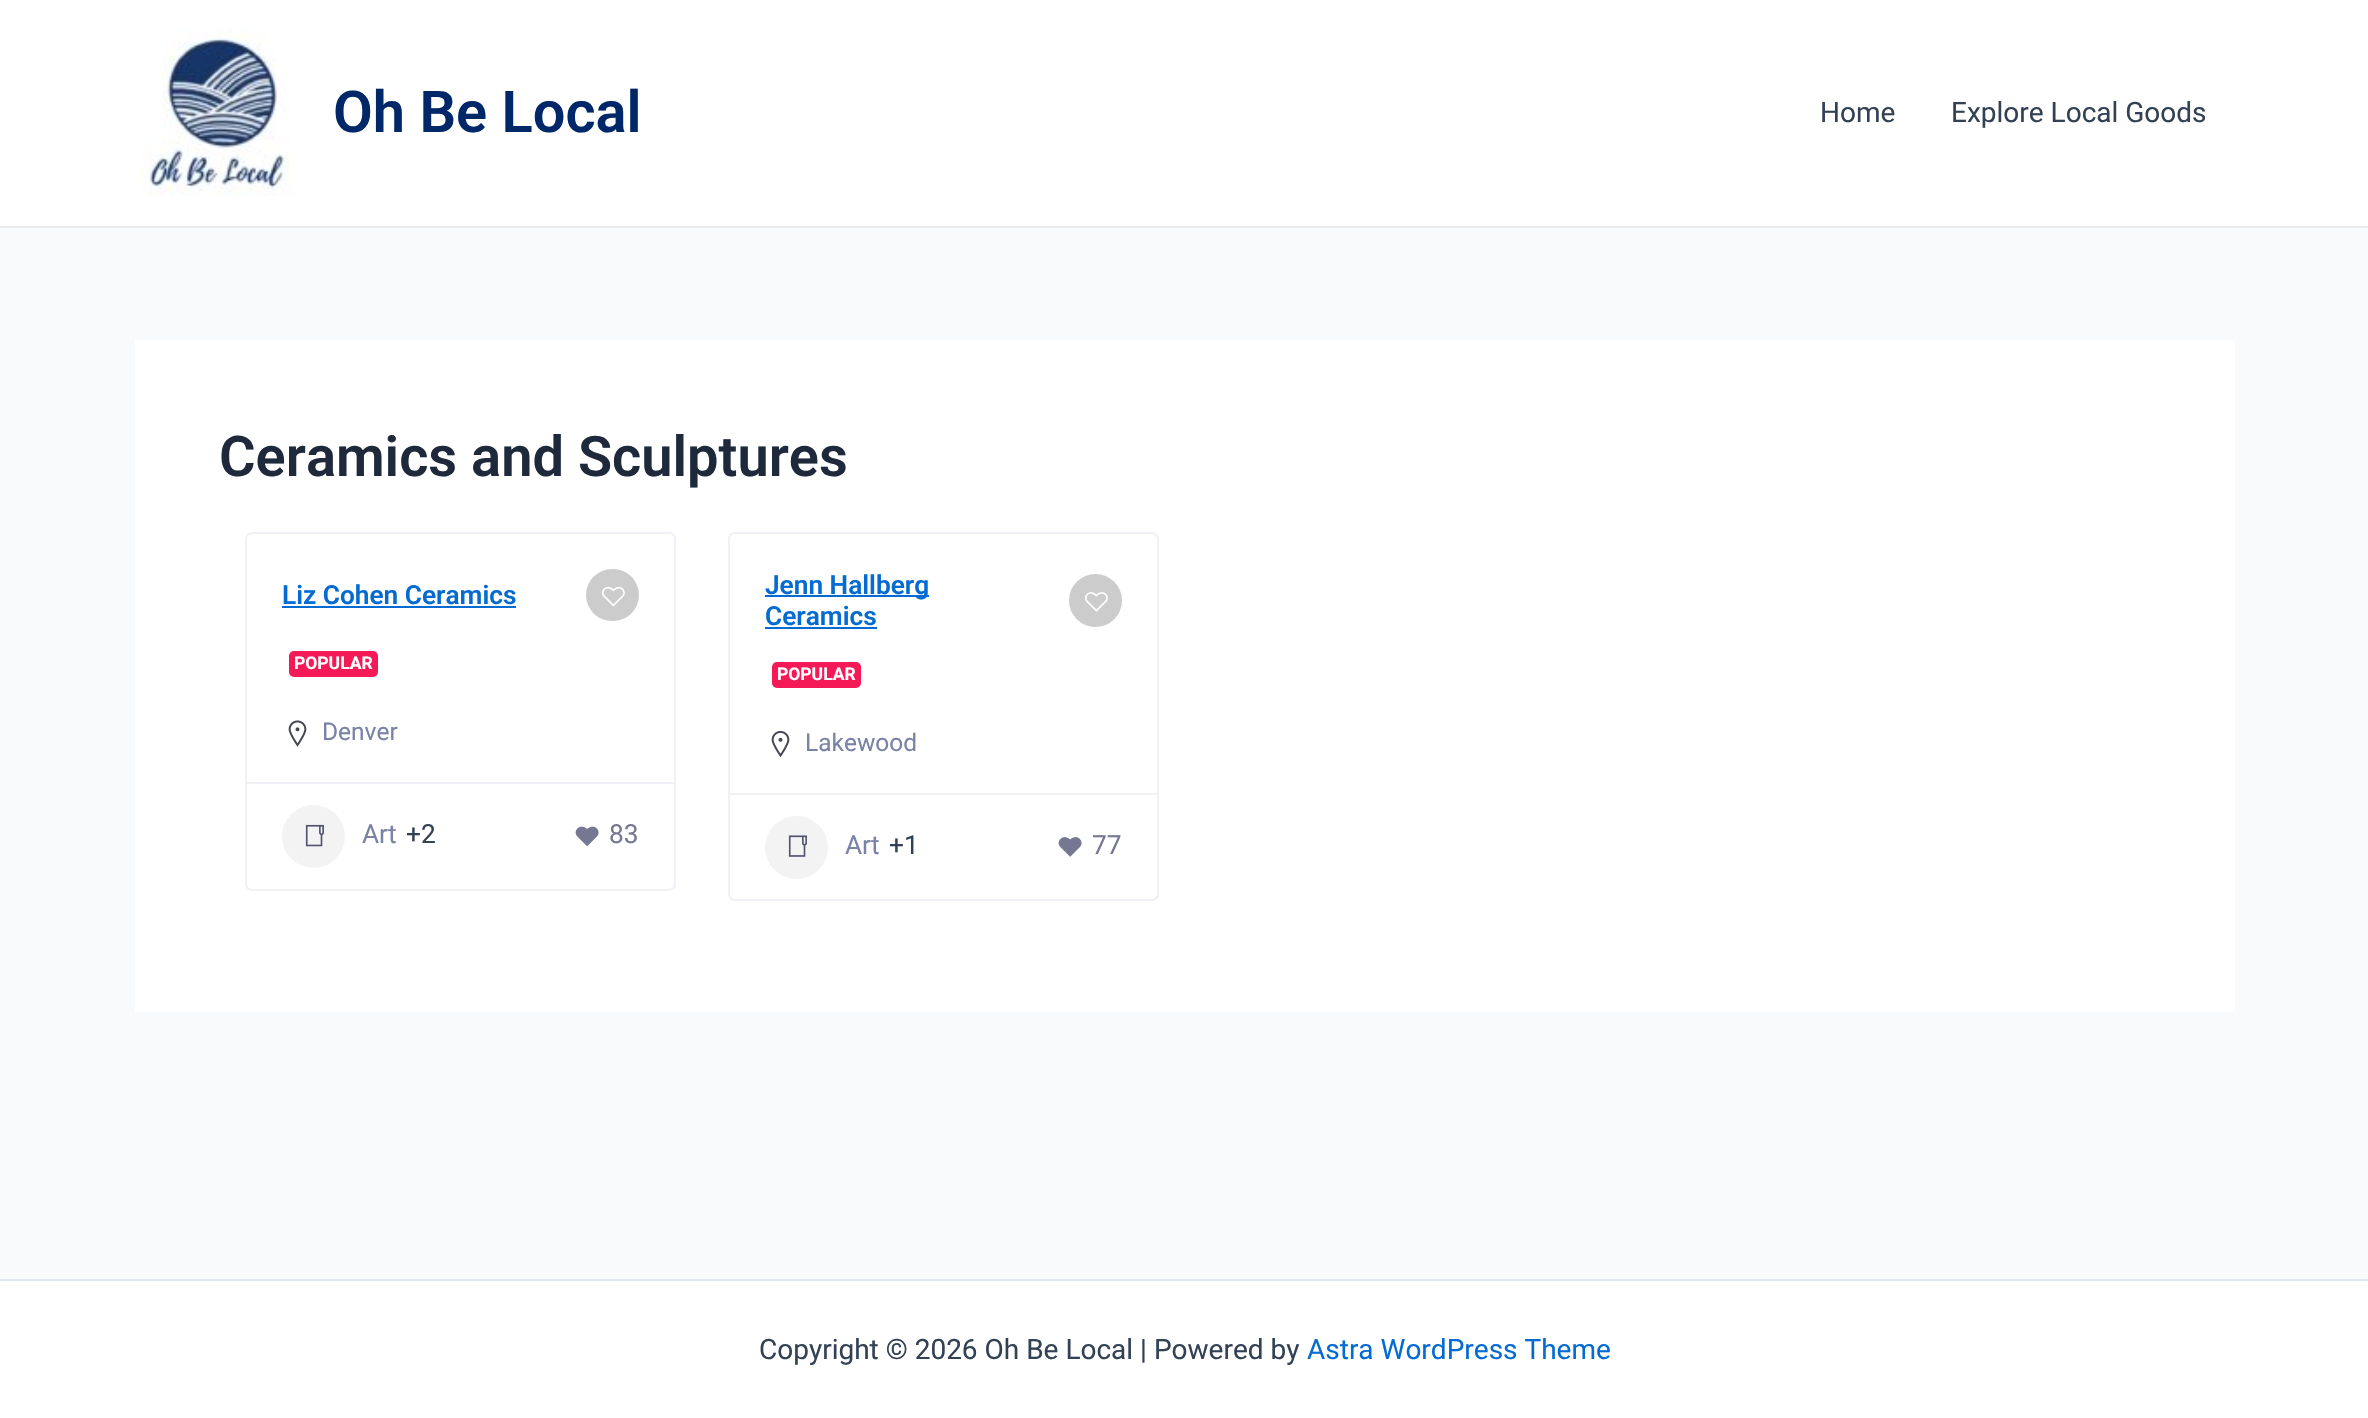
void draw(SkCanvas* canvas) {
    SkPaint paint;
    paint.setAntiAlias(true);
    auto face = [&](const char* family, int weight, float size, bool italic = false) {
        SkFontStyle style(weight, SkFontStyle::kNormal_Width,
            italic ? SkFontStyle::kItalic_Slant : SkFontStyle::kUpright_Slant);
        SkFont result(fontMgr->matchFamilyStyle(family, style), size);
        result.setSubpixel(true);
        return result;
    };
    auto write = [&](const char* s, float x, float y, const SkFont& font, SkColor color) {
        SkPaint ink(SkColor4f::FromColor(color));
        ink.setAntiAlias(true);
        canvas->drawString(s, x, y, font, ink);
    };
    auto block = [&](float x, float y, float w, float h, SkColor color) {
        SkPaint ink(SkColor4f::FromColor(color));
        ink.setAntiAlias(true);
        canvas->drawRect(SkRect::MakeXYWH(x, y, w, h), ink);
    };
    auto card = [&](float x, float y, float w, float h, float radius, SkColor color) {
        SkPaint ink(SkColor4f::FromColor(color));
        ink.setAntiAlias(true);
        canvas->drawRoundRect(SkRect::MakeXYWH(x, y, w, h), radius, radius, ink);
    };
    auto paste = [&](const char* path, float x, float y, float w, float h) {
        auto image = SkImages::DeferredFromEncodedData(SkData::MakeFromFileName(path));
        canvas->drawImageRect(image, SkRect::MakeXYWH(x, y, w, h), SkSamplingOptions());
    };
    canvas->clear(SkColorSetRGB(249, 250, 251));
    block(0, 0, 2368, 226, SK_ColorWHITE);
    block(0, 226, 2368, 2, SkColorSetRGB(234, 234, 234));
    paste("pic1.png", 140, 28, 153, 168);
    auto kFont1 = face("Roboto", 600, 57.75f);
    write("Oh Be Local", 333, 132, kFont1, SkColorSetRGB(0, 40, 104));
    auto kFont2 = face("Roboto", 400, 28);
    write("Home", 1820, 122, kFont2, SkColorSetRGB(51, 65, 85));
    write("Explore Local Goods", 1951, 122, kFont2, SkColorSetRGB(51, 65, 85));
    block(135, 340, 2100, 672, SK_ColorWHITE);
    auto kFont3 = face("Roboto", 600, 56);
    write("Ceramics and Sculptures", 219, 476, kFont3, SkColorSetRGB(30, 41, 59));
    paint.setStyle(SkPaint::kStroke_Style);
    paint.setStrokeWidth(2);
    paint.setColor(SkColorSetRGB(239, 241, 246));
    canvas->drawRoundRect(SkRect::MakeXYWH(246, 533, 429, 357), 6, 6, paint);
    auto kFont4 = face("Roboto", 600, 26.25f);
    write("Liz Cohen Ceramics", 282, 604, kFont4, SkColorSetRGB(4, 107, 210));
    block(282, 606, 234, 2, SkColorSetRGB(4, 107, 210));
    card(586, 569, 53, 52, 26, SkColorSetRGB(204, 204, 204));
    paste("pic2.png", 602, 586, 23, 21);
    card(289, 651, 89, 26, 5, SkColorSetRGB(245, 25, 87));
    auto kFont5 = face("Roboto", 700, 17.5f);
    write("POPULAR", 294, 669, kFont5, SK_ColorWHITE);
    paste("pic3.png", 288, 720, 19, 27);
    auto kFont6 = face("Roboto", 400, 24.5f);
    write("Denver", 322, 740, kFont6, SkColorSetRGB(122, 130, 166));
    block(247, 782, 427, 2, SkColorSetRGB(239, 241, 246));
    paint.setStyle(SkPaint::kFill_Style);
    paint.setColor(SkColorSetRGB(243, 243, 243));
    canvas->drawCircle(313.5f, 836.5f, 31.5f, paint);
    paste("pic4.png", 305, 824, 19, 23);
    auto kFont7 = face("Roboto", 400, 26.25f);
    write("Art", 362, 843, kFont7, SkColorSetRGB(122, 130, 166));
    write("+2", 406, 843, kFont7, SkColorSetRGB(51, 65, 85));
    paste("pic5.png", 575, 826, 24, 21);
    write("83", 609, 843, kFont7, SkColorSetRGB(118, 119, 146));
    paint.setStyle(SkPaint::kStroke_Style);
    paint.setColor(SkColorSetRGB(239, 241, 246));
    canvas->drawRoundRect(SkRect::MakeXYWH(729, 533, 429, 367), 6, 6, paint);
    block(765, 595, 164, 2, SkColorSetRGB(4, 107, 210));
    write("Jenn Hallberg", 765, 594, kFont4, SkColorSetRGB(4, 107, 210));
    write("Ceramics", 765, 625, kFont4, SkColorSetRGB(4, 107, 210));
    block(765, 627, 112, 2, SkColorSetRGB(4, 107, 210));
    paint.setStyle(SkPaint::kFill_Style);
    paint.setColor(SkColorSetRGB(204, 204, 204));
    canvas->drawCircle(1095.5f, 600.5f, 26.5f, paint);
    paste("pic6.png", 1085, 592, 23, 20);
    card(772, 662, 89, 26, 5, SkColorSetRGB(245, 25, 87));
    write("POPULAR", 777, 680, kFont5, SK_ColorWHITE);
    paste("pic7.png", 771, 731, 19, 27);
    write("Lakewood", 805, 751, kFont6, SkColorSetRGB(122, 130, 166));
    block(730, 793, 427, 2, SkColorSetRGB(239, 241, 246));
    paint.setColor(SkColorSetRGB(243, 243, 243));
    canvas->drawCircle(796.5f, 847.5f, 31.5f, paint);
    paste("pic8.png", 788, 835, 19, 22);
    write("Art", 845, 854, kFont7, SkColorSetRGB(122, 130, 166));
    write("+1", 889, 854, kFont7, SkColorSetRGB(51, 65, 85));
    paste("pic9.png", 1058, 837, 24, 20);
    write("77", 1092, 854, kFont7, SkColorSetRGB(118, 119, 146));
    block(0, 1281, 2368, 137, SK_ColorWHITE);
    block(0, 1279, 2368, 2, SkColorSetRGB(226, 232, 240));
    write("Copyright © 2026 Oh Be Local | Powered by", 759, 1359, kFont2, SkColorSetRGB(51, 65, 85));
    write("Astra WordPress Theme", 1307, 1359, kFont2, SkColorSetRGB(4, 107, 210));
}
